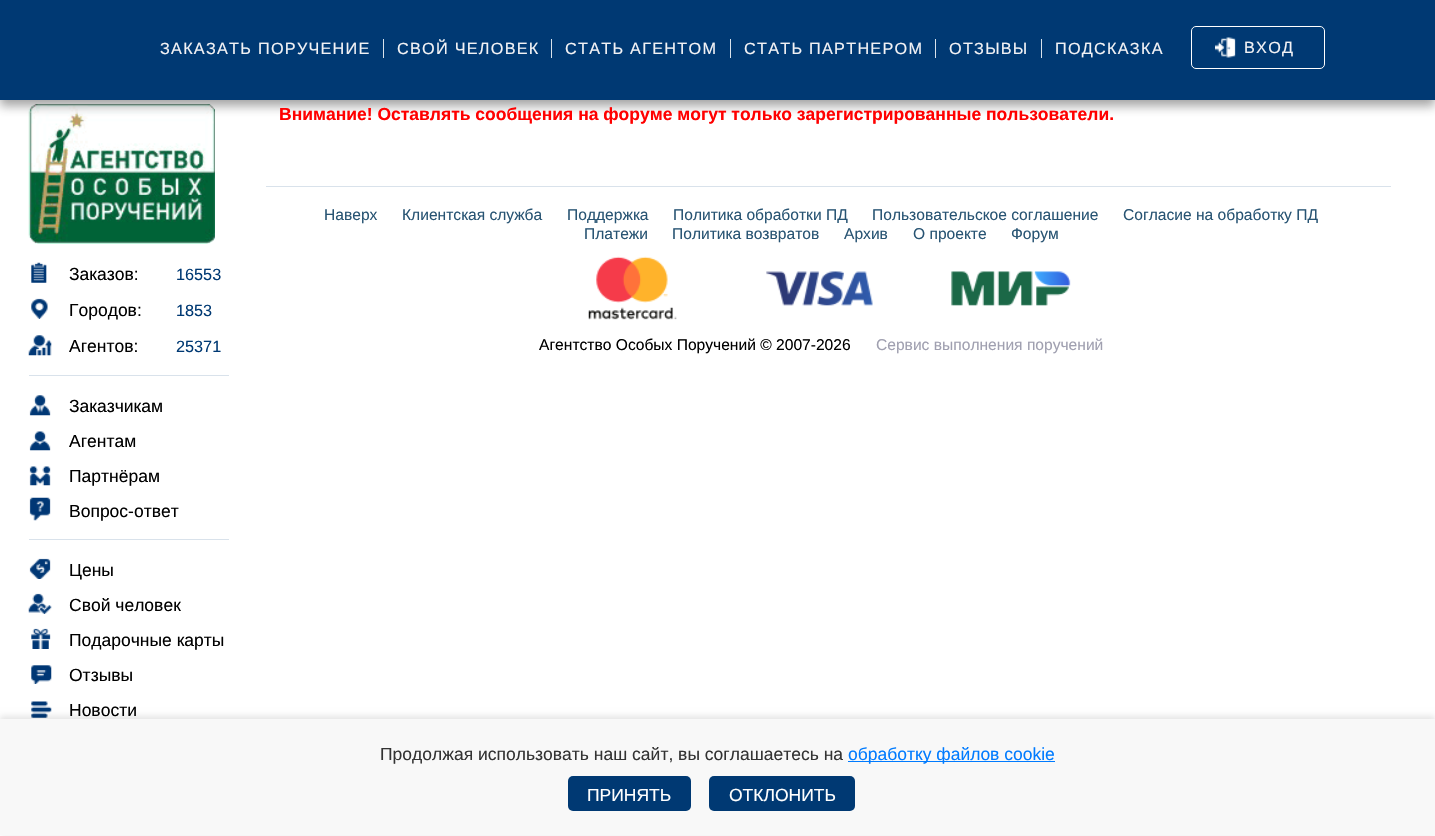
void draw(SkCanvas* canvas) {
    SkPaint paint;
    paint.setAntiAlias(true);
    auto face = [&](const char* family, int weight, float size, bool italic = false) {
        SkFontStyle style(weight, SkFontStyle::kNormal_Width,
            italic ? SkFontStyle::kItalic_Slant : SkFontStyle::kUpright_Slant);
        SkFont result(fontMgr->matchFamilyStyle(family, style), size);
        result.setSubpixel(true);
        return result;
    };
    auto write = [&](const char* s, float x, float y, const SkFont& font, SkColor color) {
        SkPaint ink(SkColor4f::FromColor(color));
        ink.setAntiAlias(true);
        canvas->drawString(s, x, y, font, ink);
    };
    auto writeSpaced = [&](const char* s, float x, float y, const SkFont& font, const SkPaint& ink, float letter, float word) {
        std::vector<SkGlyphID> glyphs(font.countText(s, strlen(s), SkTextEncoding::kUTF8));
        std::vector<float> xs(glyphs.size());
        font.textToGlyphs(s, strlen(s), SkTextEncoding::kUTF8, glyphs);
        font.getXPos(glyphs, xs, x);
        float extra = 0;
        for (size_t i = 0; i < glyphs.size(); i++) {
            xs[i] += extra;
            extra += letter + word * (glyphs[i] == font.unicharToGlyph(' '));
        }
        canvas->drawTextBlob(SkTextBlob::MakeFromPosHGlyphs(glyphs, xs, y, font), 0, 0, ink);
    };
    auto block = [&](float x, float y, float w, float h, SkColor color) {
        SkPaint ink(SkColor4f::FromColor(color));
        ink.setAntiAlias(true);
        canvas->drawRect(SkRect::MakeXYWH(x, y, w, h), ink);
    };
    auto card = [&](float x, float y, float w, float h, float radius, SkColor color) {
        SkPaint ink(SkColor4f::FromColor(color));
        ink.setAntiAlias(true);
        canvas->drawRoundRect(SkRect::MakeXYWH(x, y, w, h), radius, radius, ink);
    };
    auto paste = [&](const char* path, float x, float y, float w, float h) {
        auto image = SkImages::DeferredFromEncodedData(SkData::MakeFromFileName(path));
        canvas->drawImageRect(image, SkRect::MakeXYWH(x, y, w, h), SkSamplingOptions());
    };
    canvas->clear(SK_ColorWHITE);
    paste("pic5.png", 28, 104, 187, 140);
    paint.setColor(SkColorSetARGB(115, 50, 50, 50));
    paint.setMaskFilter(SkMaskFilter::MakeBlur(kNormal_SkBlurStyle, 5));
    canvas->drawRect(SkRect::MakeXYWH(0, 6, 1435, 100), paint);
    paint.setMaskFilter(nullptr);
    block(0, 0, 1435, 100, SkColorSetRGB(0, 57, 115));
    block(383, 39, 1, 19, SkColorSetRGB(217, 226, 235));
    auto kFont1 = face("Liberation Sans", 400, 16.25f);
    paint.setColor(SkColorSetRGB(242, 242, 245));
    writeSpaced("ЗАКАЗАТЬ ПОРУЧЕНИЕ", 160, 54, kFont1, paint, 1.25f, 0);
    block(551, 39, 1, 19, SkColorSetRGB(217, 226, 235));
    writeSpaced("СВОЙ ЧЕЛОВЕК", 397, 54, kFont1, paint, 1.25f, 0);
    block(730, 39, 1, 19, SkColorSetRGB(217, 226, 235));
    writeSpaced("СТАТЬ АГЕНТОМ", 565, 54, kFont1, paint, 1.25f, 0);
    block(935, 39, 1, 19, SkColorSetRGB(217, 226, 235));
    writeSpaced("СТАТЬ ПАРТНЕРОМ", 744, 54, kFont1, paint, 1.25f, 0);
    block(1041, 39, 1, 19, SkColorSetRGB(217, 226, 235));
    writeSpaced("ОТЗЫВЫ", 949, 54, kFont1, paint, 1.25f, 0);
    writeSpaced("ПОДСКАЗКА", 1055, 54, kFont1, paint, 1.25f, 0);
    paint.setStyle(SkPaint::kStroke_Style);
    paint.setStrokeWidth(1);
    paint.setColor(SK_ColorWHITE);
    canvas->drawRoundRect(SkRect::MakeXYWH(1191.5f, 26.5f, 133, 42), 4.5f, 4.5f, paint);
    paste("pic1.png", 1215, 37, 21, 21);
    paint.setStyle(SkPaint::kFill_Style);
    paint.setColor(SkColorSetRGB(242, 242, 245));
    writeSpaced("ВХОД", 1244, 53, kFont1, paint, 1.25f, 0);
    auto kFont2 = face("Liberation Sans", 700, 17.5f);
    write("Внимание! Оставлять сообщения на форуме могут только зарегистрированные пользователи.", 279, 120, kFont2, SkColorSetRGB(255, 0, 0));
    block(266, 186, 1125, 1, SkColorSetRGB(217, 226, 235));
    auto kFont3 = face("Liberation Sans", 400, 15.6f);
    write("Наверх", 324, 220, kFont3, SkColorSetRGB(40, 84, 115));
    write("Клиентская служба", 402, 220, kFont3, SkColorSetRGB(40, 84, 115));
    write("Поддержка", 567, 220, kFont3, SkColorSetRGB(40, 84, 115));
    write("Политика обработки ПД", 673, 220, kFont3, SkColorSetRGB(40, 84, 115));
    write("Пользовательское соглашение", 872, 220, kFont3, SkColorSetRGB(40, 84, 115));
    write("Согласие на обработку ПД", 1123, 220, kFont3, SkColorSetRGB(40, 84, 115));
    write("Платежи", 584, 239, kFont3, SkColorSetRGB(40, 84, 115));
    write("Политика возвратов", 672, 239, kFont3, SkColorSetRGB(40, 84, 115));
    write("Архив", 844, 239, kFont3, SkColorSetRGB(40, 84, 115));
    write("О проекте", 913, 239, kFont3, SkColorSetRGB(40, 84, 115));
    write("Форум", 1011, 239, kFont3, SkColorSetRGB(40, 84, 115));
    paste("pic2.png", 588, 256, 89, 64);
    paste("pic3.png", 766, 271, 107, 35);
    paste("pic4.png", 951, 271, 120, 35);
    write("Агентство Особых Поручений © 2007-2026", 539, 350, kFont3, SK_ColorBLACK);
    write("Сервис выполнения поручений", 876, 350, kFont3, SkColorSetRGB(160, 160, 176));
    block(29, 375, 200, 1, SkColorSetRGB(217, 226, 235));
    paste("pic6.png", 31, 262, 16, 21);
    auto kFont4 = face("Liberation Sans", 400, 17.5f);
    write("Заказов:", 69, 280, kFont4, SK_ColorBLACK);
    write("16553", 176, 280, kFont1, SkColorSetRGB(0, 57, 115));
    paste("pic7.png", 31, 298, 17, 21);
    write("Городов:", 69, 316, kFont4, SK_ColorBLACK);
    write("1853", 176, 316, kFont1, SkColorSetRGB(0, 57, 115));
    paste("pic8.png", 28, 335, 24, 21);
    write("Агентов:", 69, 352, kFont4, SK_ColorBLACK);
    write("25371", 176, 352, kFont1, SkColorSetRGB(0, 57, 115));
    block(29, 539, 200, 1, SkColorSetRGB(217, 226, 235));
    paste("pic9.png", 29, 395, 22, 21);
    write("Заказчикам", 69, 412, kFont4, SK_ColorBLACK);
    paste("pic10.png", 29, 431, 22, 20);
    write("Агентам", 69, 447, kFont4, SK_ColorBLACK);
    paste("pic11.png", 29, 466, 22, 20);
    write("Партнёрам", 69, 482, kFont4, SK_ColorBLACK);
    paste("pic12.png", 29, 497, 22, 24);
    write("Вопрос-ответ", 69, 517, kFont4, SK_ColorBLACK);
    paste("pic13.png", 29, 558, 22, 21);
    write("Цены", 69, 576, kFont4, SK_ColorBLACK);
    paste("pic14.png", 28, 593, 24, 21);
    write("Свой человек", 69, 611, kFont4, SK_ColorBLACK);
    paste("pic15.png", 31, 628, 20, 21);
    write("Подарочные карты", 69, 646, kFont4, SK_ColorBLACK);
    paste("pic16.png", 31, 665, 21, 19);
    write("Отзывы", 69, 681, kFont4, SK_ColorBLACK);
    paste("pic17.png", 31, 701, 21, 17);
    write("Новости", 69, 716, kFont4, SK_ColorBLACK);
    paint.setColor(SkColorSetARGB(26, 0, 0, 0));
    paint.setMaskFilter(SkMaskFilter::MakeBlur(kNormal_SkBlurStyle, 3));
    canvas->drawRect(SkRect::MakeXYWH(0, 716, 1435, 118), paint);
    paint.setMaskFilter(nullptr);
    block(0, 719, 1435, 116, SkColorSetRGB(248, 248, 248));
    write("Продолжая использовать наш сайт, вы соглашаетесь на", 380, 760, kFont4, SkColorSetRGB(51, 51, 51));
    block(848, 761, 207, 1, SkColorSetRGB(0, 123, 255));
    write("обработку файлов cookie", 848, 760, kFont4, SkColorSetRGB(0, 123, 255));
    card(568, 776, 123, 35, 5, SkColorSetRGB(0, 57, 115));
    write("ПРИНЯТЬ", 587, 801, kFont4, SK_ColorWHITE);
    card(709, 776, 146, 35, 5, SkColorSetRGB(0, 57, 115));
    write("ОТКЛОНИТЬ", 729, 801, kFont4, SK_ColorWHITE);
}
